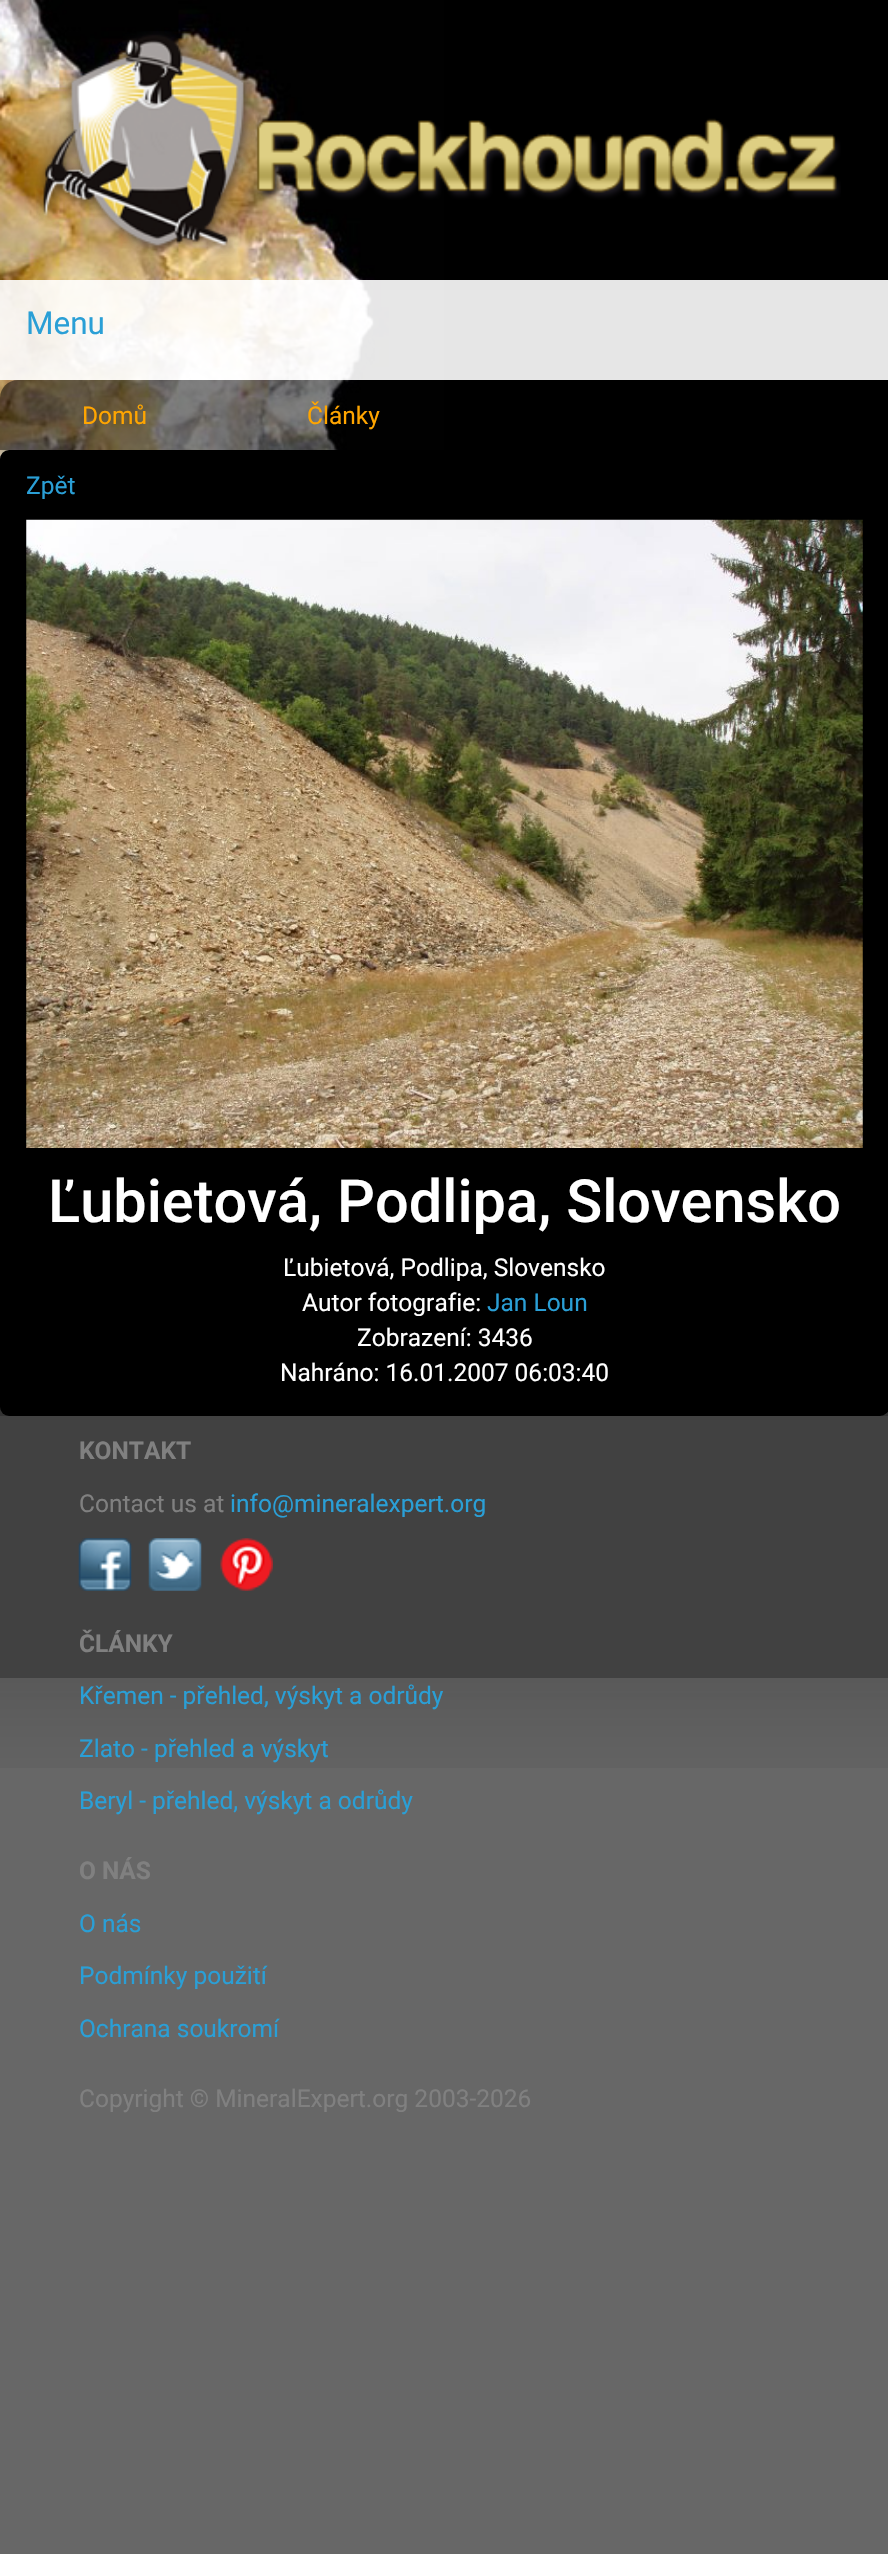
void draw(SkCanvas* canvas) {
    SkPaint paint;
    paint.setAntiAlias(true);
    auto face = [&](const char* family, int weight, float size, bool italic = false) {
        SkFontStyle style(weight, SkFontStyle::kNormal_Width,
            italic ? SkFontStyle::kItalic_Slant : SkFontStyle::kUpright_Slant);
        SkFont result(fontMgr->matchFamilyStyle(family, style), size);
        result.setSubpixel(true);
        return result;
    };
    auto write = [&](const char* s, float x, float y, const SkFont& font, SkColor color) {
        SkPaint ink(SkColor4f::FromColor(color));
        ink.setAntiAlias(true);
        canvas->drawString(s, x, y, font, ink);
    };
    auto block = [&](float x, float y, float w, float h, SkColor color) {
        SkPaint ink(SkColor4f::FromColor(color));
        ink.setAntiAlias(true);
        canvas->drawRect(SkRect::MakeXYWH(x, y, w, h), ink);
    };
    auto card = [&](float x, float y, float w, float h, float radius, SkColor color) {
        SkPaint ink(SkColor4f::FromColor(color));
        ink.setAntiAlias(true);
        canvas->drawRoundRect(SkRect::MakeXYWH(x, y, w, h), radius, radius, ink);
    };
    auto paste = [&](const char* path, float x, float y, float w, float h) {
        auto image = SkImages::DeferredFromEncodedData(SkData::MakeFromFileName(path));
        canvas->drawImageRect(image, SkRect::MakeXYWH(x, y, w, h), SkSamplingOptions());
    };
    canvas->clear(SkColorSetRGB(103, 103, 103));
    paste("pic1.png", 0, 0, 888, 1768);
    paste("pic2.png", 36, 31, 805, 225);
    block(0, 280, 888, 100, SkColorSetARGB(230, 255, 255, 255));
    auto kFont1 = face("Roboto", 400, 31.5f);
    write("Menu", 26, 334, kFont1, SkColorSetRGB(42, 159, 214));
    paint.setColor(SkColorSetARGB(128, 0, 0, 0));
    canvas->drawPath(SkPathBuilder().moveTo(18, 380).lineTo(229, 380).lineTo(229, 450).lineTo(0, 450).lineTo(0, 398).cubicTo(0, 388, 8, 380, 18, 380).close().detach(), paint);
    auto kFont2 = face("Roboto", 400, 24.5f);
    write("Domů", 82, 424, kFont2, SkColorSetRGB(255, 165, 0));
    canvas->drawPath(SkPathBuilder().moveTo(229, 380).lineTo(441, 380).cubicTo(451, 380, 459, 388, 459, 398).lineTo(459, 450).lineTo(229, 450).close().detach(), paint);
    write("Články", 307, 424, kFont2, SkColorSetRGB(255, 165, 0));
    card(0, 450, 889, 966, 9, SK_ColorBLACK);
    write("Zpět", 26, 494, kFont2, SkColorSetRGB(42, 159, 214));
    paste("pic3.png", 26, 519, 837, 629);
    auto kFont3 = face("Roboto", 500, 59.5f);
    write("Ľubietová, Podlipa, Slovensko", 48, 1222, kFont3, SK_ColorWHITE);
    write("Ľubietová, Podlipa, Slovensko", 283, 1276, kFont2, SK_ColorWHITE);
    write("Autor fotografie:", 302, 1311, kFont2, SK_ColorWHITE);
    write("Jan Loun", 487, 1311, kFont2, SkColorSetRGB(42, 159, 214));
    write("Zobrazení: 3436", 357, 1346, kFont2, SK_ColorWHITE);
    write("Nahráno: 16.01.2007 06:03:40", 280, 1381, kFont2, SK_ColorWHITE);
    block(0, 1416, 888, 262, SkColorSetRGB(65, 65, 65));
    auto kFont4 = face("Roboto", 700, 24.5f);
    write("KONTAKT", 79, 1459, kFont4, SkColorSetRGB(128, 128, 128));
    write("Contact us at", 79, 1512, kFont2, SkColorSetRGB(128, 128, 128));
    write("info@mineralexpert.org", 230, 1512, kFont2, SkColorSetRGB(42, 159, 214));
    paste("pic4.png", 78, 1538, 54, 53);
    paste("pic5.png", 148, 1538, 54, 53);
    paste("pic6.png", 220, 1538, 53, 53);
    write("ČLÁNKY", 79, 1652, kFont4, SkColorSetRGB(128, 128, 128));
    write("Křemen - přehled, výskyt a odrůdy", 79, 1704, kFont2, SkColorSetRGB(42, 159, 214));
    write("Zlato - přehled a výskyt", 79, 1757, kFont2, SkColorSetRGB(42, 159, 214));
    write("Beryl - přehled, výskyt a odrůdy", 79, 1809, kFont2, SkColorSetRGB(42, 159, 214));
    write("O NÁS", 79, 1879, kFont4, SkColorSetRGB(128, 128, 128));
    write("O nás", 79, 1932, kFont2, SkColorSetRGB(42, 159, 214));
    write("Podmínky použití", 79, 1984, kFont2, SkColorSetRGB(42, 159, 214));
    write("Ochrana soukromí", 79, 2037, kFont2, SkColorSetRGB(42, 159, 214));
    write("Copyright © MineralExpert.org 2003-2026", 79, 2107, kFont2, SkColorSetRGB(128, 128, 128));
}
